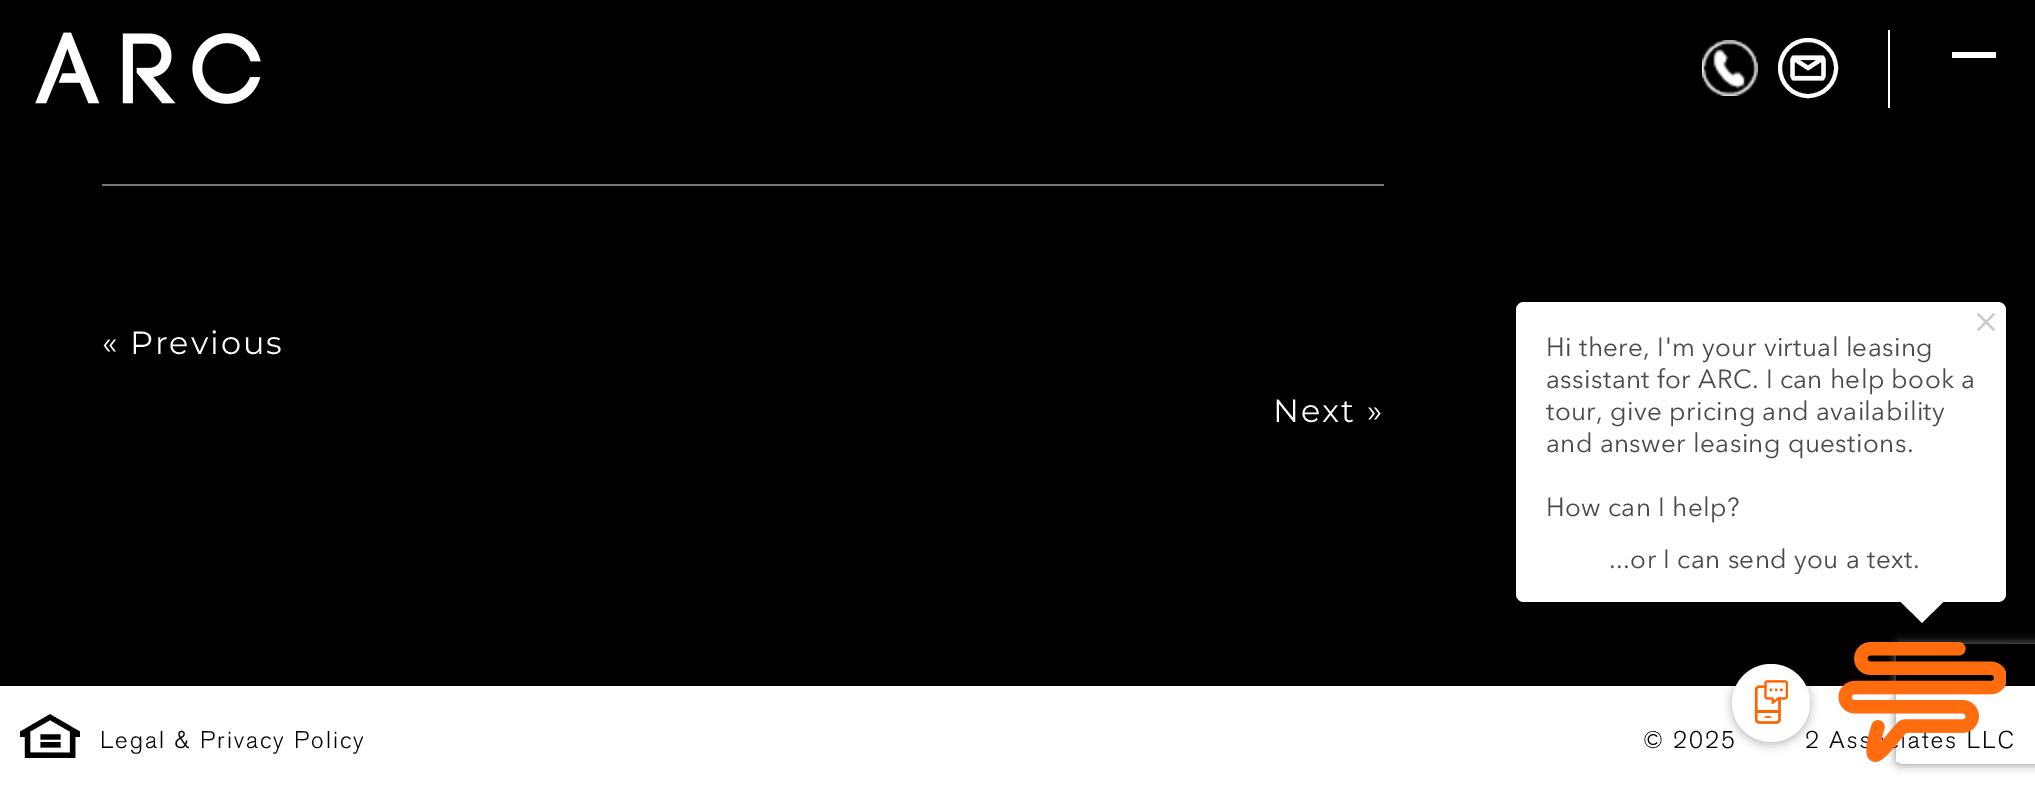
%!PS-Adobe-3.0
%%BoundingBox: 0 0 2035 791
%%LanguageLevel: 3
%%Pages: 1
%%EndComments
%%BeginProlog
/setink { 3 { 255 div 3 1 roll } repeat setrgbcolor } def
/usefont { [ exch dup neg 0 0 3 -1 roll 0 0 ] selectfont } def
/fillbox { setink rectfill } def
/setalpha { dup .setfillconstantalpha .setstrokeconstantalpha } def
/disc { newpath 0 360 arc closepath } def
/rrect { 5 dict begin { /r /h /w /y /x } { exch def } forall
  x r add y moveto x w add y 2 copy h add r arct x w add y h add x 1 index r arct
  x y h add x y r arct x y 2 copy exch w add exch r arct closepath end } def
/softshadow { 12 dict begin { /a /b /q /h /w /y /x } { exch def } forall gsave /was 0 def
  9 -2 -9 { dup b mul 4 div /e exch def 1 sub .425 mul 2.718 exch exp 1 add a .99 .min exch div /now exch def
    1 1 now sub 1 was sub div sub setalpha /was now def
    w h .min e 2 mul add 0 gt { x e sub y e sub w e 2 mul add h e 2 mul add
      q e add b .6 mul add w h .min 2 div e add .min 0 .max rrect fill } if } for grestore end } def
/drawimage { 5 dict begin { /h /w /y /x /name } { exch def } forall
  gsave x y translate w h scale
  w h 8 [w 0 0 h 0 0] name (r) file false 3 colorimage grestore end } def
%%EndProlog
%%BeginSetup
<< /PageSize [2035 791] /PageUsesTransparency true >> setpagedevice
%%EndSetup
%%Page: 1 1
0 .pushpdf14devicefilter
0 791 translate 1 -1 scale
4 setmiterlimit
0 0 2035 791 0 0 0 fillbox
(assets/img1.rgb) 35 32 226 72 drawimage
(assets/img2.rgb) 1702 40 56 56 drawimage
255 255 255 setink
4 setlinewidth
1808 68 28 disc stroke
(assets/img3.rgb) 1790 55 36 26 drawimage
1888 30 2 78 255 255 255 fillbox
1952 52 44 6 255 255 255 fillbox
102 184 1282 2 119 119 119 fillbox
/Montserrat-Regular 32 usefont
255 255 255 setink
102 354 moveto 2 0 (« Previous) ashow
1273 422 moveto 2 0 (Next ») ashow
0 686 2035 105 255 255 255 fillbox
(assets/img4.rgb) 20 714 60 44 drawimage
/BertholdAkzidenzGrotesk-Light 24 usefont
0 0 0 setink
100 748 moveto 2 0 (Legal & Privacy Policy) ashow
1643 748 moveto 2 0 (© 2025) ashow
1805 748 moveto 2 0 (2 As) ashow
1908 748 moveto 2 0 (ates LLC) ashow
255 255 255 setink
1516 302 490 300 8 rrect fill
(assets/img5.rgb) 1976 312 20 20 drawimage
/AvenirNext-Regular 26 usefont
74 74 74 setink
1546 356 moveto 0.4 0 (Hi there, I'm your virtual leasing) ashow
1546 388 moveto 0.4 0 (assistant for ARC. I can help book a) ashow
1546 420 moveto 0.4 0 (tour, give pricing and availability) ashow
1546 452 moveto 0.4 0 (and answer leasing questions.) ashow
1546 516 moveto 0.4 0 (How can I help?) ashow
gsave
1546 542 430 32 rectclip
1609 568 moveto 0.4 0 (...or I can send you a text.) ashow
grestore
gsave
1890 602 64 64 rectclip
255 255 255 setink
1877 578 moveto 1922 533 lineto 1967 578 lineto 1922 623 lineto closepath fill
grestore
gsave
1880 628 moveto 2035 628 lineto 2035 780 lineto 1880 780 lineto closepath 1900 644 moveto 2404 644 lineto 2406 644 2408 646 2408 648 curveto 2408 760 lineto 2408 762 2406 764 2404 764 curveto 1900 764 lineto 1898 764 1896 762 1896 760 curveto 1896 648 lineto 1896 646 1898 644 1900 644 curveto closepath eoclip newpath
128 128 128 setink
1896 644 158 120 4 5 1 softshadow
grestore
(assets/img6.rgb) 1838 642 168 120 drawimage
0 0 0 setink
1732 666 78 78 39 5 0.3 softshadow
255 255 255 setink
1771 703 39 disc fill
(assets/img7.rgb) 1754 680 34 44 drawimage
.poppdf14devicefilter showpage
%%EOF
